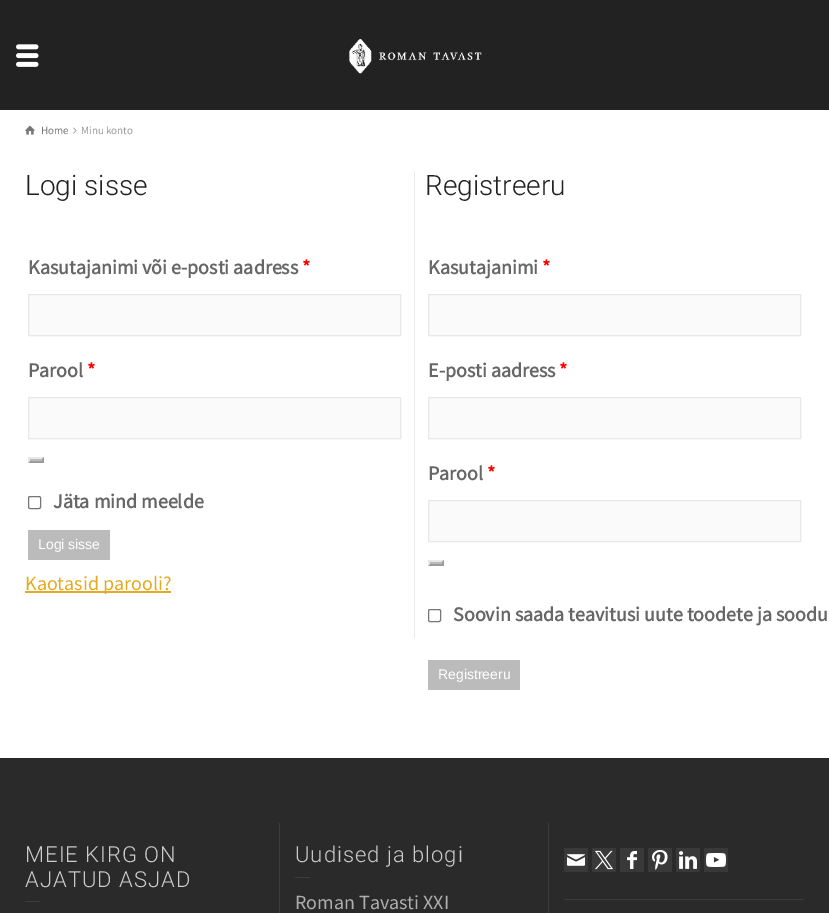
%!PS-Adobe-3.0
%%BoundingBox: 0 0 829 913
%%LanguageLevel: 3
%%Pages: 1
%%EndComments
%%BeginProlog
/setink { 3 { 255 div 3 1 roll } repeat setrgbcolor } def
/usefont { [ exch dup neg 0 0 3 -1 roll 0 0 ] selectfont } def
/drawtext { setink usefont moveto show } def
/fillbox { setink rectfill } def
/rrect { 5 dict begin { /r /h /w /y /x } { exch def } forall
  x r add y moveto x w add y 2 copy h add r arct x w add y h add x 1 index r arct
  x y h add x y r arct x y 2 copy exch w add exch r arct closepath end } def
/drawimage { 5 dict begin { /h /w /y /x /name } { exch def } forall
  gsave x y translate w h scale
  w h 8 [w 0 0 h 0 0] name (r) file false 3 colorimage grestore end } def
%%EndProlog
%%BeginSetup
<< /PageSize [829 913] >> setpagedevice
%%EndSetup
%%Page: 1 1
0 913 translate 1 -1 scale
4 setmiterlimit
0 0 829 913 255 255 255 fillbox
0 0 829 110 34 34 34 fillbox
(assets/img1.rgb) 16 44 23 23 drawimage
(assets/img2.rgb) 349 39 133 35 drawimage
(assets/img3.rgb) 25 125 10 10 drawimage
(Home) 41 134 /SourceSansPro-Regular 11 119 119 119 drawtext
(assets/img4.rgb) 73 127 4 7 drawimage
(Minu konto) 81 134 /SourceSansPro-Regular 11 153 153 153 drawtext
414 171 1 467 232 232 232 fillbox
(Logi sisse) 25 195 /Roboto-Light 28 34 34 34 drawtext
(Kasutajanimi või e-posti aadress) 28 274 /SourceSansPro-Bold 20 102 102 102 drawtext
(*) 302 274 /SourceSansPro-Bold 20 255 0 0 drawtext
250 250 250 setink
28.5 294.5 moveto 400.5 294.5 lineto 400.5 335.5 lineto 28.5 335.5 lineto closepath gsave fill grestore
232 232 232 setink
stroke
(Parool) 28 377 /SourceSansPro-Bold 20 102 102 102 drawtext
(*) 87 377 /SourceSansPro-Bold 20 255 0 0 drawtext
250 250 250 setink
28.5 397.5 moveto 400.5 397.5 lineto 400.5 438.5 lineto 28.5 438.5 lineto closepath gsave fill grestore
232 232 232 setink
stroke
28 457 16 6 187 187 187 fillbox
232 232 232 setink
28 457 moveto 44 457 lineto 42 459 lineto 30 459 lineto closepath fill
155 155 155 setink
44 457 moveto 44 463 lineto 42 461 lineto 42 459 lineto closepath fill
44 463 moveto 28 463 lineto 30 461 lineto 42 461 lineto closepath fill
232 232 232 setink
28 463 moveto 28 457 lineto 30 459 lineto 30 461 lineto closepath fill
118 118 118 setink
28.5 496.5 12 12 1.5 rrect stroke
(Jäta mind meelde) 53 508 /SourceSansPro-Bold 20 102 102 102 drawtext
28 530 82 30 187 187 187 fillbox
(Logi sisse) 38 549 /LiberationSans-Regular 14 255 255 255 drawtext
25 591 146 2 230 170 33 fillbox
(Kaotasid parooli?) 25 590 /SourceSansPro-Regular 20 230 170 33 drawtext
(Registreeru) 425 195 /Roboto-Light 28 34 34 34 drawtext
(Kasutajanimi) 428 274 /SourceSansPro-Bold 20 102 102 102 drawtext
(*) 542 274 /SourceSansPro-Bold 20 255 0 0 drawtext
250 250 250 setink
428.5 294.5 moveto 800.5 294.5 lineto 800.5 335.5 lineto 428.5 335.5 lineto closepath gsave fill grestore
232 232 232 setink
stroke
(E-posti aadress) 428 377 /SourceSansPro-Bold 20 102 102 102 drawtext
(*) 559 377 /SourceSansPro-Bold 20 255 0 0 drawtext
250 250 250 setink
428.5 397.5 moveto 800.5 397.5 lineto 800.5 438.5 lineto 428.5 438.5 lineto closepath gsave fill grestore
232 232 232 setink
stroke
(Parool) 428 480 /SourceSansPro-Bold 20 102 102 102 drawtext
(*) 487 480 /SourceSansPro-Bold 20 255 0 0 drawtext
250 250 250 setink
428.5 500.5 moveto 800.5 500.5 lineto 800.5 541.5 lineto 428.5 541.5 lineto closepath gsave fill grestore
232 232 232 setink
stroke
428 560 16 6 187 187 187 fillbox
232 232 232 setink
428 560 moveto 444 560 lineto 442 562 lineto 430 562 lineto closepath fill
155 155 155 setink
444 560 moveto 444 566 lineto 442 564 lineto 442 562 lineto closepath fill
444 566 moveto 428 566 lineto 430 564 lineto 442 564 lineto closepath fill
232 232 232 setink
428 566 moveto 428 560 lineto 430 562 lineto 430 564 lineto closepath fill
118 118 118 setink
428.5 609.5 12 12 1.5 rrect stroke
(Soovin saada teavitusi uute toodete ja soodu) 453 621 /SourceSansPro-Bold 20 102 102 102 drawtext
428 660 92 30 187 187 187 fillbox
(Registreeru) 438 679 /LiberationSans-Regular 14 255 255 255 drawtext
0 758 829 155 42 42 42 fillbox
/Roboto-Light 22 usefont
204 204 204 setink
25 862 moveto 1 0 (MEIE KIRG ON) ashow
25 887 moveto 1 0 (AJATUD ASJAD) ashow
25 901 15 1 60 60 60 fillbox
279 823 1 90 60 60 60 fillbox
204 204 204 setink
295 862 moveto 1 0 (Uudised ja blogi) ashow
295 877 15 1 60 60 60 fillbox
(Roman Tavasti XXI) 295 909 /SourceSansPro-Regular 20 174 174 174 drawtext
548 823 1 90 60 60 60 fillbox
564 848 24 24 57 57 57 fillbox
(assets/img5.rgb) 567 854 18 12 drawimage
592 848 24 24 57 57 57 fillbox
(assets/img6.rgb) 595 850 18 20 drawimage
620 848 24 24 57 57 57 fillbox
(assets/img7.rgb) 627 851 10 18 drawimage
648 848 24 24 57 57 57 fillbox
(assets/img8.rgb) 652 850 16 20 drawimage
676 848 24 24 57 57 57 fillbox
(assets/img9.rgb) 679 851 18 18 drawimage
704 848 24 24 57 57 57 fillbox
(assets/img10.rgb) 706 852 20 15 drawimage
564 899 240 1 60 60 60 fillbox
showpage
%%EOF
